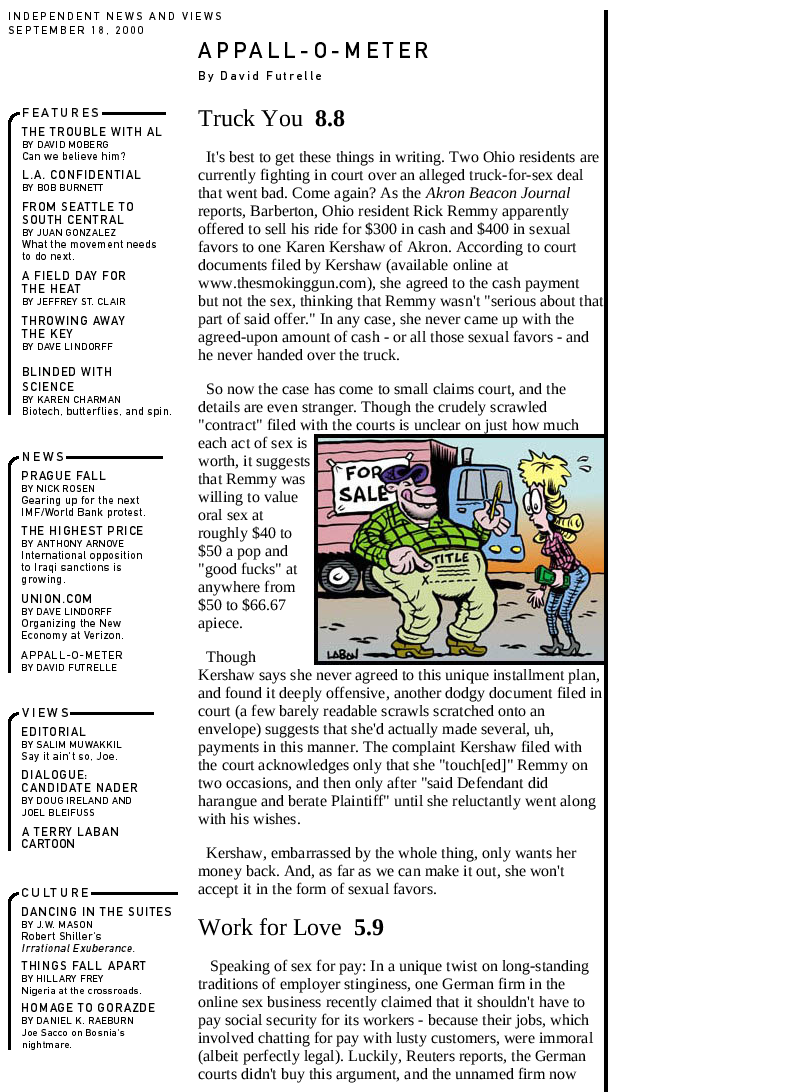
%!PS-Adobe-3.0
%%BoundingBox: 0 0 790 1092
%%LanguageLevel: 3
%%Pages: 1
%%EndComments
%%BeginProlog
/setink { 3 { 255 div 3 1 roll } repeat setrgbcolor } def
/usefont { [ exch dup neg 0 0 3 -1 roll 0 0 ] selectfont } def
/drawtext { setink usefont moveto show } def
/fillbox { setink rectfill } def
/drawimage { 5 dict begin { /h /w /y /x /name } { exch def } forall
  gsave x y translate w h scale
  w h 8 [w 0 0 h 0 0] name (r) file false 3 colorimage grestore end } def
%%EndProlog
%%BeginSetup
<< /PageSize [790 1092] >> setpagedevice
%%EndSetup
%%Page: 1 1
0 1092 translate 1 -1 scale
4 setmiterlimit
0 0 790 1092 255 255 255 fillbox
(assets/img1.rgb) 8 10 600 27 drawimage
(assets/img2.rgb) 8 108 163 309 drawimage
(assets/img3.rgb) 8 452 155 221 drawimage
(assets/img4.rgb) 8 708 146 143 drawimage
(assets/img5.rgb) 8 888 170 162 drawimage
(assets/img6.rgb) 198 42 230 40 drawimage
604 37 4 1055 0 0 0 fillbox
(Truck You) 198 126 /LiberationSerif-Regular 24 0 0 0 drawtext
(8.8) 315 126 /LiberationSerif-Bold 24 0 0 0 drawtext
(It's best to get these things in writing. Two Ohio residents are) 206 162 /LiberationSerif-Regular 16 0 0 0 drawtext
(currently fighting in court over an alleged truck-for-sex deal) 198 180 /LiberationSerif-Regular 16 0 0 0 drawtext
(that went bad. Come again? As the) 198 198 /LiberationSerif-Regular 16 0 0 0 drawtext
(Akron Beacon Journal) 426 198 /LiberationSerif-Italic 16 0 0 0 drawtext
(reports, Barberton, Ohio resident Rick Remmy apparently) 198 216 /LiberationSerif-Regular 16 0 0 0 drawtext
(offered to sell his ride for $300 in cash and $400 in sexual) 198 234 /LiberationSerif-Regular 16 0 0 0 drawtext
(favors to one Karen Kershaw of Akron. According to court) 198 252 /LiberationSerif-Regular 16 0 0 0 drawtext
(documents filed by Kershaw \(available online at) 198 270 /LiberationSerif-Regular 16 0 0 0 drawtext
(www.thesmokinggun.com\), she agreed to the cash payment) 198 288 /LiberationSerif-Regular 16 0 0 0 drawtext
(but not the sex, thinking that Remmy wasn't "serious about that) 198 306 /LiberationSerif-Regular 16 0 0 0 drawtext
(part of said offer." In any case, she never came up with the) 198 324 /LiberationSerif-Regular 16 0 0 0 drawtext
(agreed-upon amount of cash - or all those sexual favors - and) 198 342 /LiberationSerif-Regular 16 0 0 0 drawtext
(he never handed over the truck.) 198 360 /LiberationSerif-Regular 16 0 0 0 drawtext
(So now the case has come to small claims court, and the) 206 394 /LiberationSerif-Regular 16 0 0 0 drawtext
(details are even stranger. Though the crudely scrawled) 198 412 /LiberationSerif-Regular 16 0 0 0 drawtext
("contract" filed with the courts is unclear on just how much) 198 430 /LiberationSerif-Regular 16 0 0 0 drawtext
(each act of sex is) 198 448 /LiberationSerif-Regular 16 0 0 0 drawtext
(assets/img7.rgb) 314 434 290 231 drawimage
(worth, it suggests) 198 466 /LiberationSerif-Regular 16 0 0 0 drawtext
(that Remmy was) 198 484 /LiberationSerif-Regular 16 0 0 0 drawtext
(willing to value) 198 502 /LiberationSerif-Regular 16 0 0 0 drawtext
(oral sex at) 198 520 /LiberationSerif-Regular 16 0 0 0 drawtext
(roughly $40 to) 198 538 /LiberationSerif-Regular 16 0 0 0 drawtext
($50 a pop and) 198 556 /LiberationSerif-Regular 16 0 0 0 drawtext
("good fucks" at) 198 574 /LiberationSerif-Regular 16 0 0 0 drawtext
(anywhere from) 198 592 /LiberationSerif-Regular 16 0 0 0 drawtext
($50 to $66.67) 198 610 /LiberationSerif-Regular 16 0 0 0 drawtext
(apiece.) 198 628 /LiberationSerif-Regular 16 0 0 0 drawtext
(Though) 206 662 /LiberationSerif-Regular 16 0 0 0 drawtext
(Kershaw says she never agreed to this unique installment plan,) 198 680 /LiberationSerif-Regular 16 0 0 0 drawtext
(and found it deeply offensive, another dodgy document filed in) 198 698 /LiberationSerif-Regular 16 0 0 0 drawtext
(court \(a few barely readable scrawls scratched onto an) 198 716 /LiberationSerif-Regular 16 0 0 0 drawtext
(envelope\) suggests that she'd actually made several, uh,) 198 734 /LiberationSerif-Regular 16 0 0 0 drawtext
(payments in this manner. The complaint Kershaw filed with) 198 752 /LiberationSerif-Regular 16 0 0 0 drawtext
(the court acknowledges only that she "touch[ed]" Remmy on) 198 770 /LiberationSerif-Regular 16 0 0 0 drawtext
(two occasions, and then only after "said Defendant did) 198 788 /LiberationSerif-Regular 16 0 0 0 drawtext
(harangue and berate Plaintiff" until she reluctantly went along) 198 806 /LiberationSerif-Regular 16 0 0 0 drawtext
(with his wishes.) 198 824 /LiberationSerif-Regular 16 0 0 0 drawtext
(Kershaw, embarrassed by the whole thing, only wants her) 206 858 /LiberationSerif-Regular 16 0 0 0 drawtext
(money back. And, as far as we can make it out, she won't) 198 876 /LiberationSerif-Regular 16 0 0 0 drawtext
(accept it in the form of sexual favors.) 198 894 /LiberationSerif-Regular 16 0 0 0 drawtext
(Work for Love) 198 935 /LiberationSerif-Regular 24 0 0 0 drawtext
(5.9) 354 935 /LiberationSerif-Bold 24 0 0 0 drawtext
(Speaking of sex for pay: In a unique twist on long-standing) 210 971 /LiberationSerif-Regular 16 0 0 0 drawtext
(traditions of employer stinginess, one German firm in the) 198 989 /LiberationSerif-Regular 16 0 0 0 drawtext
(online sex business recently claimed that it shouldn't have to) 198 1007 /LiberationSerif-Regular 16 0 0 0 drawtext
(pay social security for its workers - because their jobs, which) 198 1025 /LiberationSerif-Regular 16 0 0 0 drawtext
(involved chatting for pay with lusty customers, were immoral) 198 1043 /LiberationSerif-Regular 16 0 0 0 drawtext
(\(albeit perfectly legal\). Luckily, Reuters reports, the German) 198 1061 /LiberationSerif-Regular 16 0 0 0 drawtext
(courts didn't buy this argument, and the unnamed firm now) 198 1079 /LiberationSerif-Regular 16 0 0 0 drawtext
showpage
%%EOF
